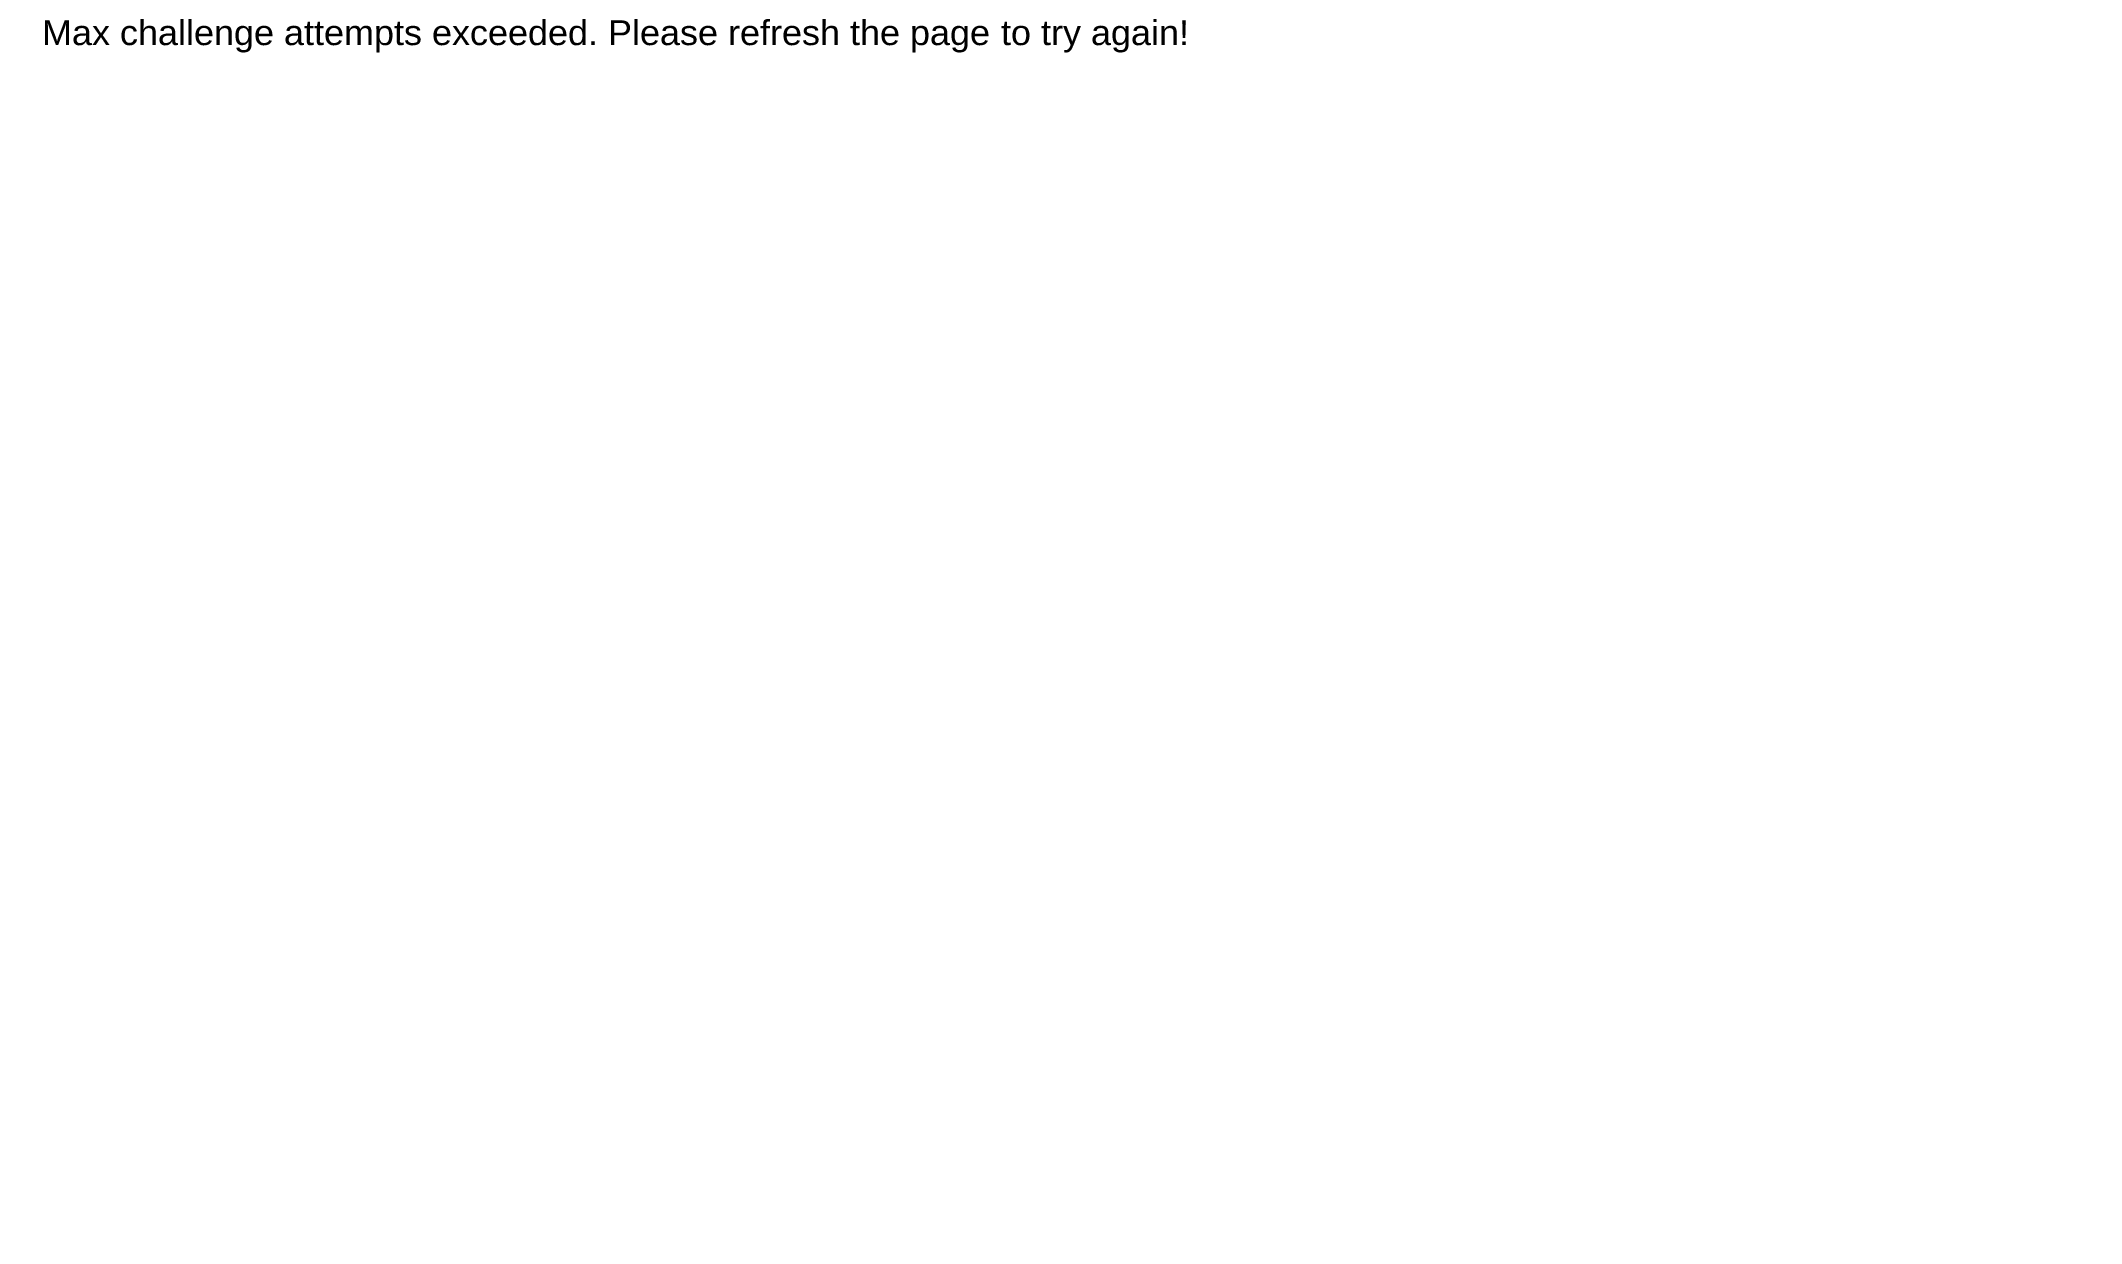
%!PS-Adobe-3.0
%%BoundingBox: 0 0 2122 1264
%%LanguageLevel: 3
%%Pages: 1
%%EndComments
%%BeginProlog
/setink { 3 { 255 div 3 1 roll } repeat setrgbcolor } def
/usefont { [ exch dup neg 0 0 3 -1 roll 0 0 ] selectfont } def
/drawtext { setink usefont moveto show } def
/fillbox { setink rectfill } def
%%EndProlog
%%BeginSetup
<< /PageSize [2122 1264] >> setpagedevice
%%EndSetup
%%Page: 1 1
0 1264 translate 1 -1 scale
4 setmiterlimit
0 0 2122 1264 255 255 255 fillbox
(Max challenge attempts exceeded. Please refresh the page to try again!) 42 45 /LiberationSans-Regular 36 0 0 0 drawtext
showpage
%%EOF
